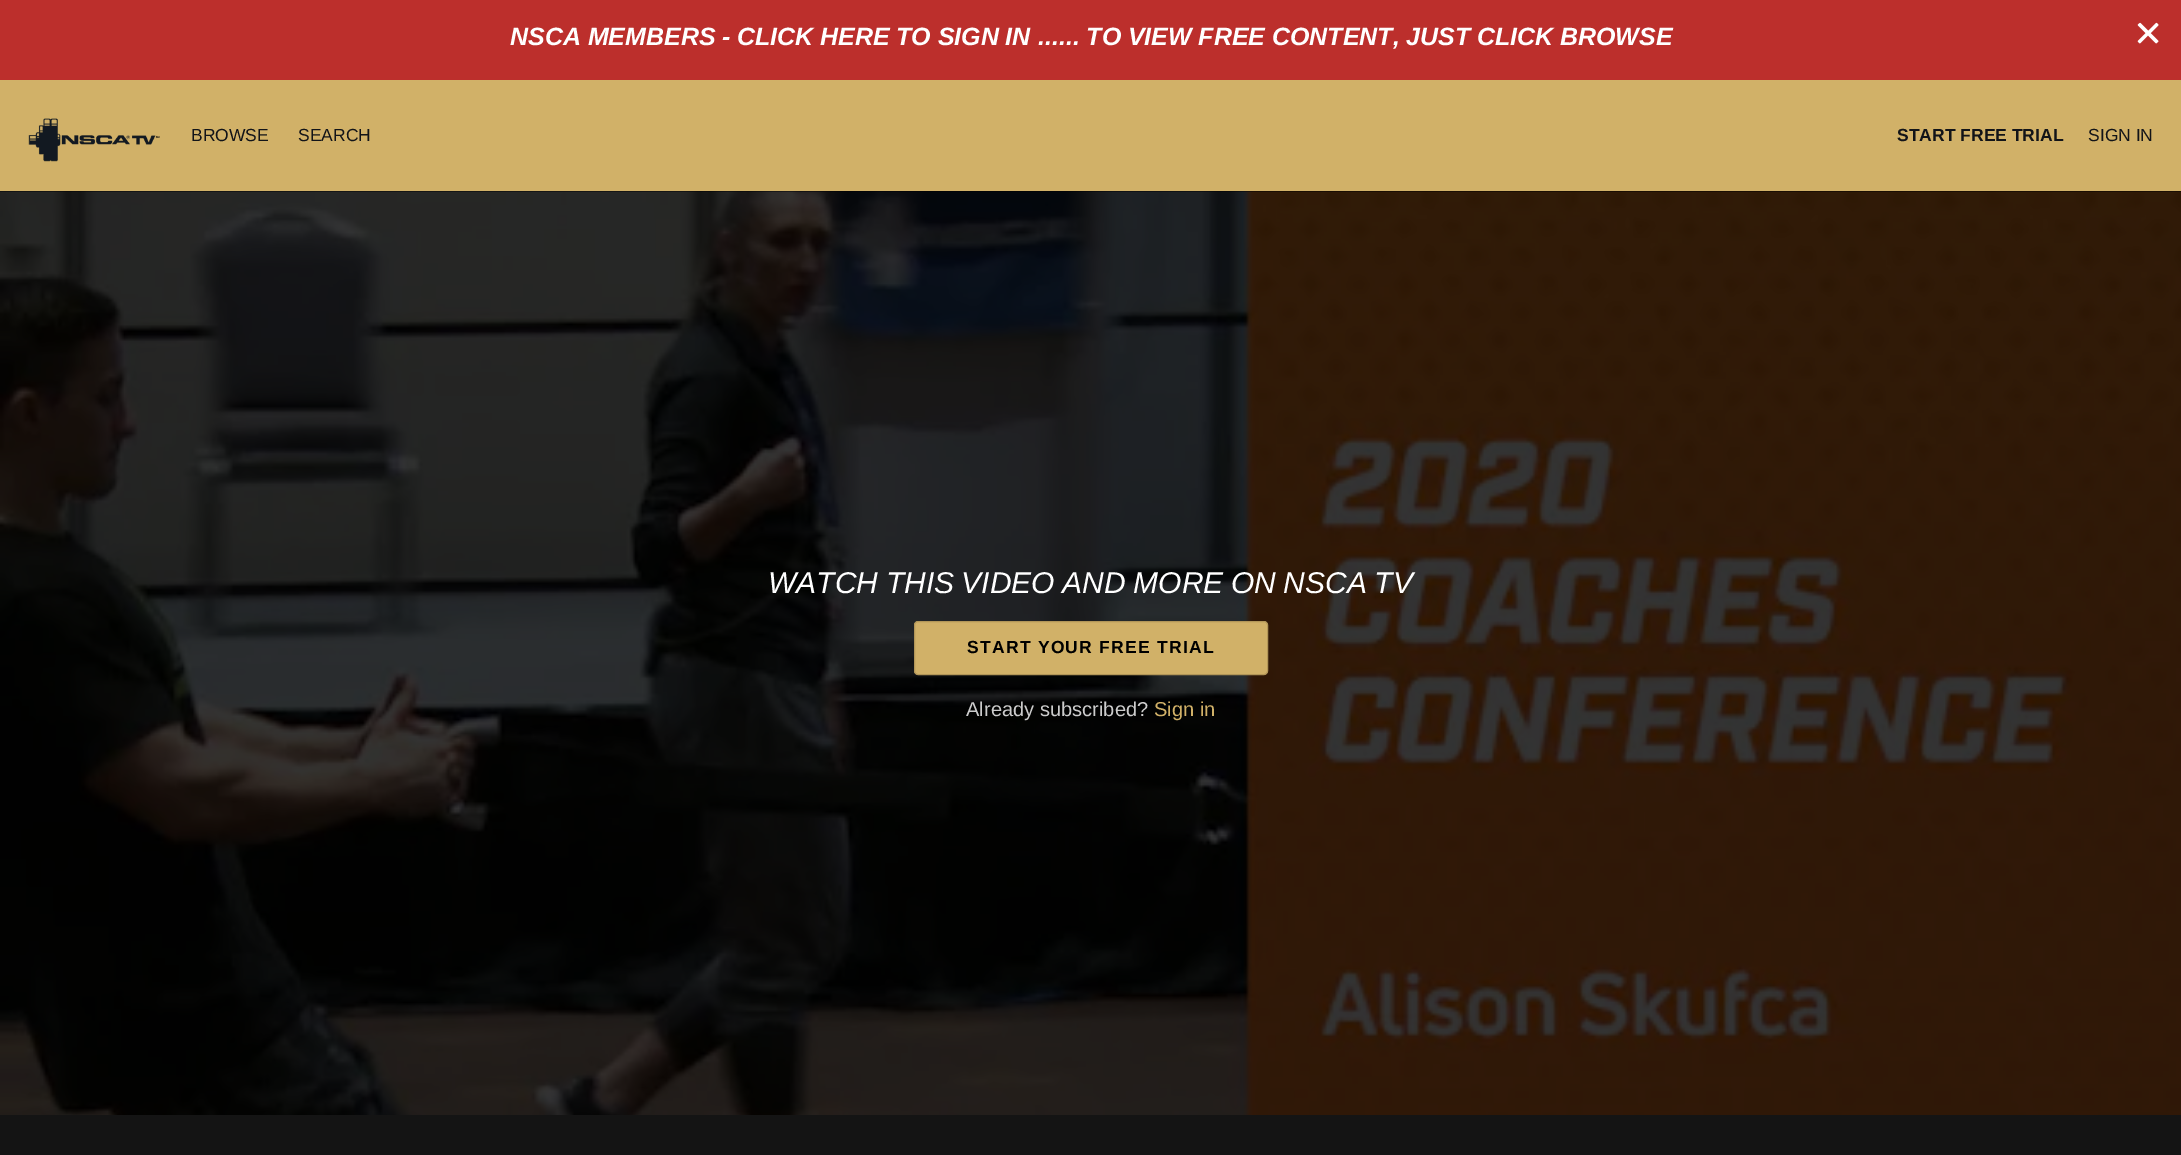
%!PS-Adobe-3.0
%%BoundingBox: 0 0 2181 1155
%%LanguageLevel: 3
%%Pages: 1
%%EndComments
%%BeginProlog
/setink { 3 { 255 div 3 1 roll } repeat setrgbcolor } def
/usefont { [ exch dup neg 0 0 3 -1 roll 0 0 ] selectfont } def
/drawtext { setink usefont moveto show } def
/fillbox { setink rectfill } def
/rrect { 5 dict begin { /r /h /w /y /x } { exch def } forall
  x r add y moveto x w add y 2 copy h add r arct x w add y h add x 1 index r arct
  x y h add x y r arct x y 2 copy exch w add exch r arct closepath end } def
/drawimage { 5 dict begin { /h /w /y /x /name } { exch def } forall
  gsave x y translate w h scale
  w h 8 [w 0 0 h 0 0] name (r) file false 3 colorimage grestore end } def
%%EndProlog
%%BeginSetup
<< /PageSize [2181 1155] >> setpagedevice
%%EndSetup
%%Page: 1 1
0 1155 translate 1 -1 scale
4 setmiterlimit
0 0 2181 1155 20 20 20 fillbox
0 0 2181 80 188 47 44 fillbox
/LiberationSans-BoldItalic 25 usefont
255 255 255 setink
510 45 moveto -0.25 0 32 (NSCA MEMBERS - CLICK HERE TO SIGN IN) widthshow
1038 45 moveto -0.25 0 32 (...... TO VIEW FREE CONTENT, JUST CLICK BROWSE) widthshow
(assets/img1.rgb) 2137 22 22 22 drawimage
0 80 2181 111 209 177 104 fillbox
(assets/img2.rgb) 28 118 132 44 drawimage
(BROWSE) 191 141 /LiberationSans-Regular 17.5 18 20 24 drawtext
(SEARCH) 298 141 /LiberationSans-Regular 17.5 18 20 24 drawtext
(START FREE TRIAL) 1897 141 /LiberationSans-Bold 17.5 18 20 24 drawtext
(SIGN IN) 2088 141 /LiberationSans-Regular 17.5 18 20 24 drawtext
0 191 2181 1 0 0 0 fillbox
(assets/img3.rgb) 0 191 2181 924 drawimage
/LiberationSans-Italic 30 usefont
255 255 255 setink
768 593 moveto -0.75 0 32 (WATCH THIS VIDEO AND MORE ON NSCA TV) widthshow
209 177 104 setink
914.5 621.5 353 53 3.5 rrect gsave fill grestore
178 150 88 setink
stroke
/LiberationSans-Bold 17.5 usefont
0 0 0 setink
967 653 moveto 1.25 0 (START YOUR FREE TRIAL) ashow
(Already subscribed?) 966 716 /LiberationSans-Regular 20.1 204 204 204 drawtext
(Sign in) 1154 716 /LiberationSans-Regular 20.1 209 177 104 drawtext
showpage
%%EOF
